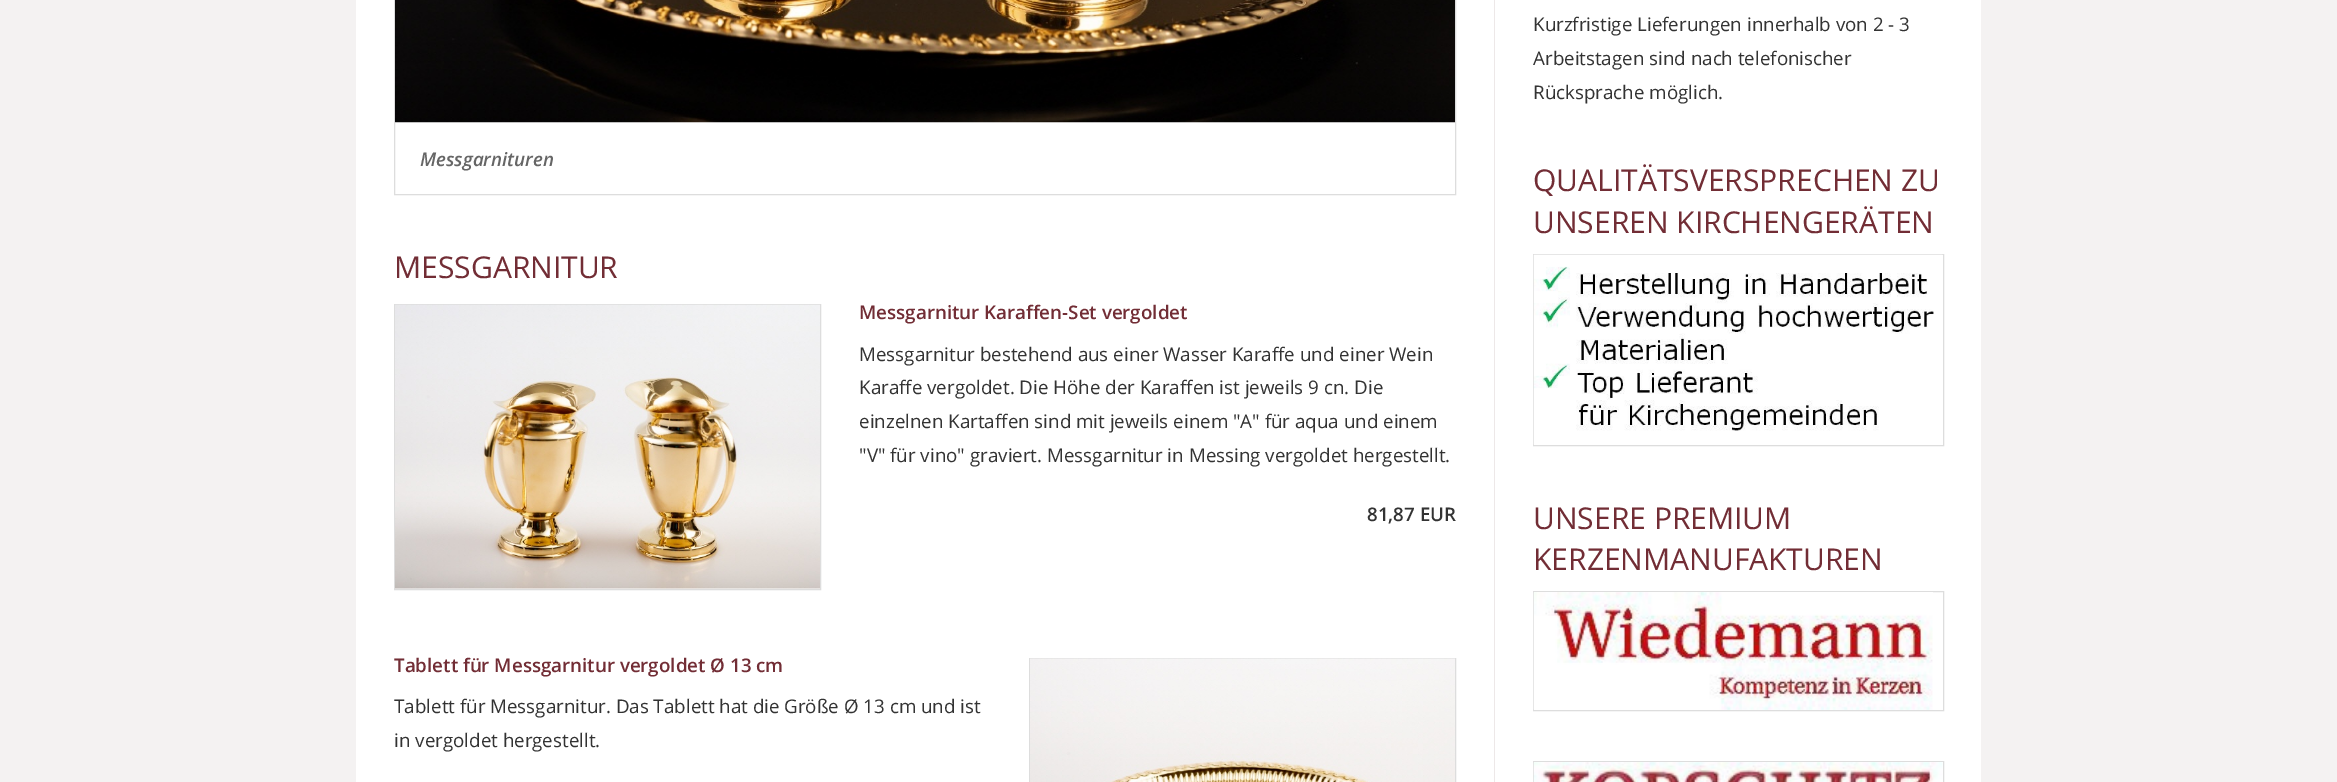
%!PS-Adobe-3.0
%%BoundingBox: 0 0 2337 782
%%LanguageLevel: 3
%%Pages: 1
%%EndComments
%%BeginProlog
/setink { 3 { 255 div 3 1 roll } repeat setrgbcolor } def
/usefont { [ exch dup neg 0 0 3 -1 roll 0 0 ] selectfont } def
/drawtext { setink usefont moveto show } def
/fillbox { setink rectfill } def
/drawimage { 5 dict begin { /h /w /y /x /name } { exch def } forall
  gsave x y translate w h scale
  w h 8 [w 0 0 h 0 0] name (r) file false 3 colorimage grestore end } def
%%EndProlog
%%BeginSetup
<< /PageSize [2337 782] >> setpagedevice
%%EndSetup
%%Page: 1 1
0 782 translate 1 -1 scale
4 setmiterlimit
0 0 2337 782 244 242 242 fillbox
356 0 1138 782 255 255 255 fillbox
221 221 221 setink
394.5 -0.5 1061 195 rectstroke
(assets/img1.rgb) 395 0 1060 123 drawimage
(Messgarnituren) 420 166 /OpenSans-SemiBoldItalic 18.75 102 102 102 drawtext
(MESSGARNITUR) 394 278 /OpenSans-Regular 30 114 45 53 drawtext
221 221 221 setink
394.5 304.5 426 285 rectstroke
(assets/img2.rgb) 395 304 425 285 drawimage
(Messgarnitur Karaffen-Set vergoldet) 859 319 /OpenSans-SemiBold 18.75 114 45 53 drawtext
(Messgarnitur bestehend aus einer Wasser Karaffe und einer Wein) 859 361 /OpenSans-Regular 18.75 51 51 51 drawtext
(Karaffe vergoldet. Die Höhe der Karaffen ist jeweils 9 cn. Die) 859 394 /OpenSans-Regular 18.75 51 51 51 drawtext
(einzelnen Kartaffen sind mit jeweils einem "A" für aqua und einem) 859 428 /OpenSans-Regular 18.75 51 51 51 drawtext
("V" für vino" graviert. Messgarnitur in Messing vergoldet hergestellt.) 859 462 /OpenSans-Regular 18.75 51 51 51 drawtext
(81,87 EUR) 1367 521 /OpenSans-SemiBold 18.75 51 51 51 drawtext
(Tablett für Messgarnitur vergoldet Ø 13 cm) 394 672 /OpenSans-SemiBold 18.75 114 45 53 drawtext
221 221 221 setink
1029.5 658.5 426 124 rectstroke
(assets/img3.rgb) 1030 658 425 124 drawimage
(Tablett für Messgarnitur. Das Tablett hat die Größe Ø 13 cm und ist) 394 713 /OpenSans-Regular 18.75 51 51 51 drawtext
(in vergoldet hergestellt.) 394 747 /OpenSans-Regular 18.75 51 51 51 drawtext
1495 0 486 782 255 255 255 fillbox
1494 0 1 782 237 232 232 fillbox
(Kurzfristige Lieferungen innerhalb von 2 - 3) 1533 31 /OpenSans-Regular 18.75 51 51 51 drawtext
(Arbeitstagen sind nach telefonischer) 1533 65 /OpenSans-Regular 18.75 51 51 51 drawtext
(Rücksprache möglich.) 1533 99 /OpenSans-Regular 18.75 51 51 51 drawtext
(QUALITÄTSVERSPRECHEN ZU) 1533 191 /OpenSans-Regular 30 114 45 53 drawtext
(UNSEREN KIRCHENGERÄTEN) 1533 233 /OpenSans-Regular 30 114 45 53 drawtext
221 221 221 setink
1533.5 254.5 410 191 rectstroke
(assets/img4.rgb) 1533 254 410 191 drawimage
(UNSERE PREMIUM) 1533 529 /OpenSans-Regular 30 114 45 53 drawtext
(KERZENMANUFAKTUREN) 1533 570 /OpenSans-Regular 30 114 45 53 drawtext
221 221 221 setink
1533.5 591.5 410 119 rectstroke
(assets/img5.rgb) 1533 592 400 118 drawimage
1533.5 761.5 410 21 rectstroke
(assets/img6.rgb) 1533 762 410 20 drawimage
showpage
%%EOF
